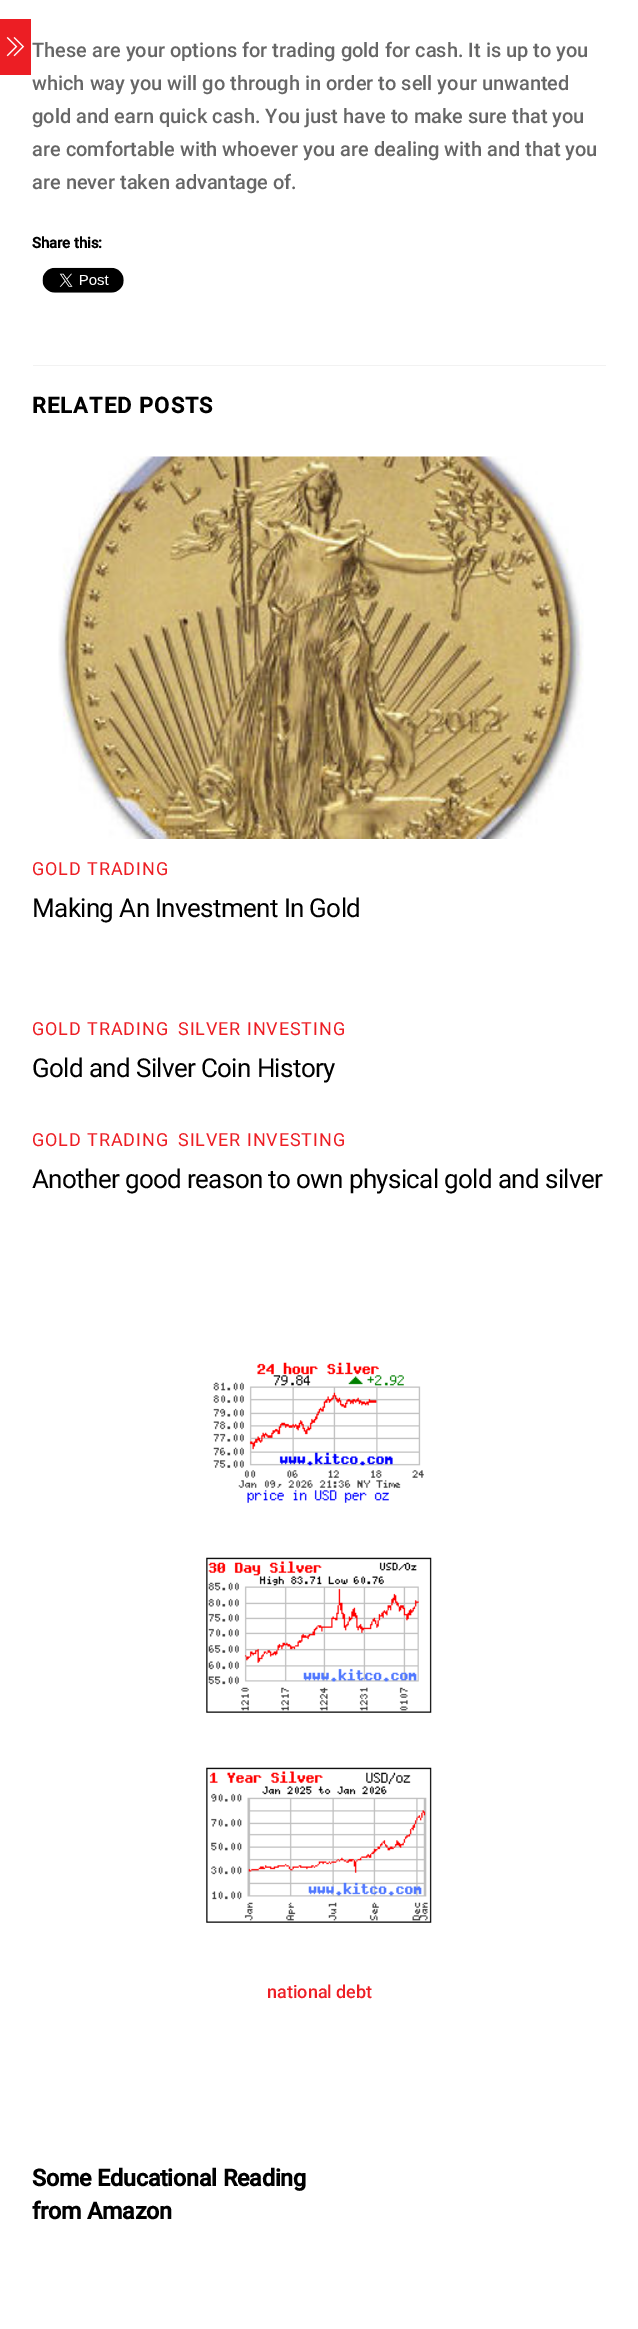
%!PS-Adobe-3.0
%%BoundingBox: 0 0 638 2329
%%LanguageLevel: 3
%%Pages: 1
%%EndComments
%%BeginProlog
/setink { 3 { 255 div 3 1 roll } repeat setrgbcolor } def
/usefont { [ exch dup neg 0 0 3 -1 roll 0 0 ] selectfont } def
/drawtext { setink usefont moveto show } def
/fillbox { setink rectfill } def
/drawimage { 5 dict begin { /h /w /y /x /name } { exch def } forall
  gsave x y translate w h scale
  w h 8 [w 0 0 h 0 0] name (r) file false 3 colorimage grestore end } def
%%EndProlog
%%BeginSetup
<< /PageSize [638 2329] >> setpagedevice
%%EndSetup
%%Page: 1 1
0 2329 translate 1 -1 scale
4 setmiterlimit
0 0 638 2329 255 255 255 fillbox
0 19 31 56 236 30 36 fillbox
(assets/img1.rgb) 6 37 19 20 drawimage
(These are your options for trading gold for cash. It is up to you) 32 57 /Roboto-Medium 20 102 102 102 drawtext
(which way you will go through in order to sell your unwanted) 32 90 /Roboto-Medium 20 102 102 102 drawtext
(gold and earn quick cash. You just have to make sure that you) 32 123 /Roboto-Medium 20 102 102 102 drawtext
(are comfortable with whoever you are dealing with and that you) 32 156 /Roboto-Medium 20 102 102 102 drawtext
(are never taken advantage of.) 32 189 /Roboto-Medium 20 102 102 102 drawtext
/Roboto-Bold 15 usefont
0 0 0 setink
32 248 moveto -0.1 0 (Share this:) ashow
(assets/img2.rgb) 42 267 82 26 drawimage
33 365 573 1 242 242 242 fillbox
/Roboto-Bold 22 usefont
0 0 0 setink
32 413 moveto 1.1 0 (RELATED POSTS) ashow
(assets/img3.rgb) 58 456 526 383 drawimage
/Roboto-Regular 18 usefont
237 30 36 setink
32 875 moveto 0.9 0 (GOLD TRADING) ashow
/Roboto-Regular 26 usefont
0 0 0 setink
32 917 moveto -0.65 0 (Making An Investment In Gold) ashow
/Roboto-Regular 18 usefont
237 30 36 setink
32 1035 moveto 0.9 0 (GOLD TRADING) ashow
178 1035 moveto 0.9 0 (SILVER INVESTING) ashow
/Roboto-Regular 26 usefont
0 0 0 setink
32 1077 moveto -0.65 0 (Gold and Silver Coin History) ashow
/Roboto-Regular 18 usefont
237 30 36 setink
32 1146 moveto 0.9 0 (GOLD TRADING) ashow
178 1146 moveto 0.9 0 (SILVER INVESTING) ashow
/Roboto-Regular 26 usefont
0 0 0 setink
32 1188 moveto -0.65 0 (Another good reason to own physical gold and silver) ashow
(assets/img4.rgb) 213 1362 211 141 drawimage
(assets/img5.rgb) 206 1557 226 156 drawimage
(assets/img6.rgb) 206 1767 226 156 drawimage
(national debt) 267 1998 /Roboto-Medium 18 237 30 36 drawtext
/Roboto-Bold 23.4 usefont
0 0 0 setink
32 2186 moveto -0.25 0 (Some Educational Reading) ashow
32 2219 moveto -0.25 0 (from Amazon) ashow
showpage
%%EOF
